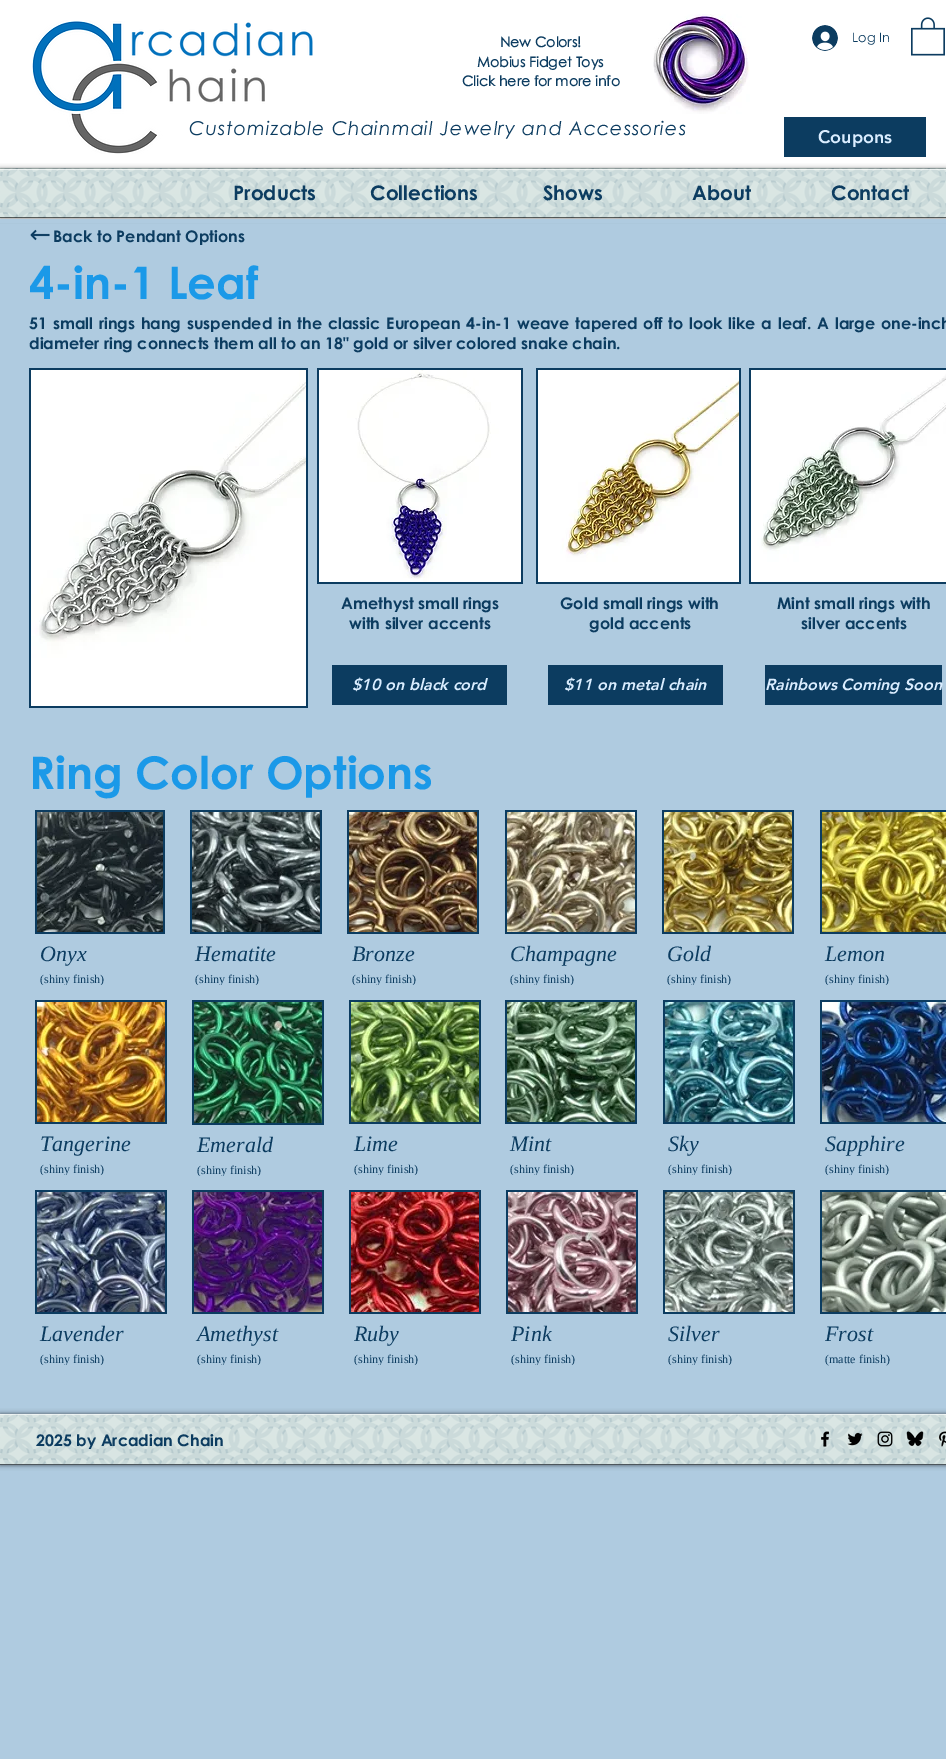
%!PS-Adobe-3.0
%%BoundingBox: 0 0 946 1759
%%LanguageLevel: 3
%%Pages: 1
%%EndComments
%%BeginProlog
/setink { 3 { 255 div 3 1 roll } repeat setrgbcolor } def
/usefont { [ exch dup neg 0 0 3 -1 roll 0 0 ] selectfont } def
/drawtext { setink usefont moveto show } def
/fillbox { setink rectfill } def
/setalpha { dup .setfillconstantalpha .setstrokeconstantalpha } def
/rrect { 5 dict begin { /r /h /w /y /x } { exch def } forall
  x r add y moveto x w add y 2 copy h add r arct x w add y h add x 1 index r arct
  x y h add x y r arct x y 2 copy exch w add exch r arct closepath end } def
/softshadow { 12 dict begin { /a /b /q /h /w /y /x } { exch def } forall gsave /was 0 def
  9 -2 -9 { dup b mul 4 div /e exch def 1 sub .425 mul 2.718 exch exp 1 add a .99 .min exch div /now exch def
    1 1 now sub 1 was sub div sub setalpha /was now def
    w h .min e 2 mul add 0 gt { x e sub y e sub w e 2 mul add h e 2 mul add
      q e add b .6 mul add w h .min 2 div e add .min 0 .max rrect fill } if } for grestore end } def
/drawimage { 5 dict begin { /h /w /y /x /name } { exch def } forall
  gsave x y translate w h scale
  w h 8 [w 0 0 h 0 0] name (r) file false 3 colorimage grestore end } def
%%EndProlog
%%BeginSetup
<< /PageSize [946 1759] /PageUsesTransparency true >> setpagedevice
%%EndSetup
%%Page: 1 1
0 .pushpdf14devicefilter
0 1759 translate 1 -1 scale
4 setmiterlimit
0 0 946 1759 175 203 224 fillbox
0 0 946 219 255 255 255 fillbox
/CenturyGothic-Italic 19 usefont
12 60 96 setink
189 135 moveto 0.95 0 (Customizable Chainmail Jewelry and Accessories) ashow
(assets/img1.rgb) 32 20 281 134 drawimage
(New Colors!) 500 47 /CenturyGothic-Bold 14 12 60 96 drawtext
(Mobius Fidget Toys) 477 67 /CenturyGothic-Bold 14 12 60 96 drawtext
(Click here for more info) 462 86 /CenturyGothic-Bold 14 12 60 96 drawtext
(assets/img2.rgb) 653 14 97 100 drawimage
(assets/img3.rgb) 812 25 26 26 drawimage
(Log In) 852 42 /CenturyGothic-Regular 13 12 60 96 drawtext
(assets/img4.rgb) 911 17 34 39 drawimage
784 117 142 40 12 60 96 fillbox
(Coupons) 818 143 /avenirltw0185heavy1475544-Black 18 218 237 255 drawtext
(assets/img5.rgb) 0 168 946 50 drawimage
gsave
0 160 moveto 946 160 lineto 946 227 lineto 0 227 lineto closepath 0 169 moveto 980 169 lineto 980 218 lineto 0 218 lineto closepath eoclip newpath
0 0 0 setink
0 169 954 49 0 2.5 0.6 softshadow
grestore
(assets/img6.rgb) 0 169 946 49 drawimage
0.6 setalpha
0 217 946 1 0 0 0 fillbox
0 169 946 1 255 255 255 fillbox
1 setalpha
(Products) 233 200 /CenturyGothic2-Bold 20 12 60 96 drawtext
(Collections) 370 200 /CenturyGothic2-Bold 20 12 60 96 drawtext
(Shows) 543 200 /CenturyGothic2-Bold 20 12 60 96 drawtext
(About) 692 200 /CenturyGothic2-Bold 20 12 60 96 drawtext
(Contact) 831 200 /CenturyGothic2-Bold 20 12 60 96 drawtext
0 219 946 4 175 203 224 fillbox
(assets/img7.rgb) 30 229 20 12 drawimage
(Back to Pendant Options) 53 242 /CenturyGothic2-Bold 16 12 60 96 drawtext
(4-in-1 Leaf) 29 299 /CenturyGothic2-Bold 45 27 153 232 drawtext
/CenturyGothic2-Bold 16 usefont
12 60 96 setink
29 329 moveto 1.3 0 32 (51 small rings hang suspended in the classic European 4-in-1 weave tapered off to look like a leaf. A large one-inch) widthshow
(diameter ring connects them all to an 18" gold or silver colored snake chain.) 29 349 /CenturyGothic2-Bold 16 12 60 96 drawtext
29 368 279 340 12 60 96 fillbox
(assets/img8.rgb) 31 370 275 336 drawimage
317 368 206 216 12 60 96 fillbox
(assets/img9.rgb) 319 370 202 212 drawimage
536 368 205 216 12 60 96 fillbox
(assets/img10.rgb) 538 370 201 212 drawimage
749 368 197 216 12 60 96 fillbox
(assets/img11.rgb) 751 370 195 212 drawimage
(Amethyst small rings) 341 609 /CenturyGothic2-Bold 16 12 60 96 drawtext
(with silver accents) 349 629 /CenturyGothic2-Bold 16 12 60 96 drawtext
(Gold small rings with) 560 609 /CenturyGothic2-Bold 16 12 60 96 drawtext
(gold accents) 589 629 /CenturyGothic2-Bold 16 12 60 96 drawtext
(Mint small rings with) 777 609 /CenturyGothic2-Bold 16 12 60 96 drawtext
(silver accents) 801 629 /CenturyGothic2-Bold 16 12 60 96 drawtext
332 665 175 40 12 60 96 fillbox
($10 on black cord) 352 690 /avenirltw0185heavy1475544-BlackItalic 16 218 237 255 drawtext
548 665 175 40 12 60 96 fillbox
($11 on metal chain) 564 690 /avenirltw0185heavy1475544-BlackItalic 16 218 237 255 drawtext
765 665 177 40 12 60 96 fillbox
(Rainbows Coming Soon) 765 690 /avenirltw0185heavy1475544-BlackItalic 16 218 237 255 drawtext
(Ring Color Options) 29 789 /CenturyGothic2-Bold 45 27 153 232 drawtext
35 810 130 124 12 60 96 fillbox
(assets/img12.rgb) 37 812 126 120 drawimage
(Onyx) 40 961 /LiberationSerif-Italic 22 12 60 96 drawtext
gsave
40 971 120 14 rectclip
(\(shiny finish\)) 40 983 /LiberationSerif-Regular 12 12 60 96 drawtext
grestore
190 810 132 124 12 60 96 fillbox
(assets/img13.rgb) 192 812 128 120 drawimage
(Hematite) 195 961 /LiberationSerif-Italic 22 12 60 96 drawtext
gsave
195 971 122 14 rectclip
(\(shiny finish\)) 195 983 /LiberationSerif-Regular 12 12 60 96 drawtext
grestore
347 810 132 124 12 60 96 fillbox
(assets/img14.rgb) 349 812 128 120 drawimage
(Bronze) 352 961 /LiberationSerif-Italic 22 12 60 96 drawtext
gsave
352 971 122 14 rectclip
(\(shiny finish\)) 352 983 /LiberationSerif-Regular 12 12 60 96 drawtext
grestore
505 810 132 124 12 60 96 fillbox
(assets/img15.rgb) 507 812 128 120 drawimage
(Champagne) 510 961 /LiberationSerif-Italic 22 12 60 96 drawtext
gsave
510 971 122 14 rectclip
(\(shiny finish\)) 510 983 /LiberationSerif-Regular 12 12 60 96 drawtext
grestore
662 810 132 124 12 60 96 fillbox
(assets/img16.rgb) 664 812 128 120 drawimage
(Gold) 667 961 /LiberationSerif-Italic 22 12 60 96 drawtext
gsave
667 971 122 14 rectclip
(\(shiny finish\)) 667 983 /LiberationSerif-Regular 12 12 60 96 drawtext
grestore
820 810 126 124 12 60 96 fillbox
(assets/img17.rgb) 822 812 124 120 drawimage
(Lemon) 825 961 /LiberationSerif-Italic 22 12 60 96 drawtext
gsave
825 971 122 14 rectclip
(\(shiny finish\)) 825 983 /LiberationSerif-Regular 12 12 60 96 drawtext
grestore
35 1000 132 124 12 60 96 fillbox
(assets/img18.rgb) 37 1002 128 120 drawimage
(Tangerine) 40 1151 /LiberationSerif-Italic 22 12 60 96 drawtext
gsave
40 1161 122 14 rectclip
(\(shiny finish\)) 40 1173 /LiberationSerif-Regular 12 12 60 96 drawtext
grestore
192 1000 132 125 12 60 96 fillbox
(assets/img19.rgb) 194 1002 128 121 drawimage
(Emerald) 197 1152 /LiberationSerif-Italic 22 12 60 96 drawtext
gsave
197 1162 122 14 rectclip
(\(shiny finish\)) 197 1174 /LiberationSerif-Regular 12 12 60 96 drawtext
grestore
349 1000 132 124 12 60 96 fillbox
(assets/img20.rgb) 351 1002 128 120 drawimage
(Lime) 354 1151 /LiberationSerif-Italic 22 12 60 96 drawtext
gsave
354 1161 122 14 rectclip
(\(shiny finish\)) 354 1173 /LiberationSerif-Regular 12 12 60 96 drawtext
grestore
505 1000 132 124 12 60 96 fillbox
(assets/img21.rgb) 507 1002 128 120 drawimage
(Mint) 510 1151 /LiberationSerif-Italic 22 12 60 96 drawtext
gsave
510 1161 122 14 rectclip
(\(shiny finish\)) 510 1173 /LiberationSerif-Regular 12 12 60 96 drawtext
grestore
663 1000 132 124 12 60 96 fillbox
(assets/img22.rgb) 665 1002 128 120 drawimage
(Sky) 668 1151 /LiberationSerif-Italic 22 12 60 96 drawtext
gsave
668 1161 122 14 rectclip
(\(shiny finish\)) 668 1173 /LiberationSerif-Regular 12 12 60 96 drawtext
grestore
820 1000 126 124 12 60 96 fillbox
(assets/img23.rgb) 822 1002 124 120 drawimage
(Sapphire) 825 1151 /LiberationSerif-Italic 22 12 60 96 drawtext
gsave
825 1161 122 14 rectclip
(\(shiny finish\)) 825 1173 /LiberationSerif-Regular 12 12 60 96 drawtext
grestore
35 1190 132 124 12 60 96 fillbox
(assets/img24.rgb) 37 1192 128 120 drawimage
(Lavender) 40 1341 /LiberationSerif-Italic 22 12 60 96 drawtext
gsave
40 1351 122 14 rectclip
(\(shiny finish\)) 40 1363 /LiberationSerif-Regular 12 12 60 96 drawtext
grestore
192 1190 132 124 12 60 96 fillbox
(assets/img25.rgb) 194 1192 128 120 drawimage
(Amethyst) 197 1341 /LiberationSerif-Italic 22 12 60 96 drawtext
gsave
197 1351 122 14 rectclip
(\(shiny finish\)) 197 1363 /LiberationSerif-Regular 12 12 60 96 drawtext
grestore
349 1190 132 124 12 60 96 fillbox
(assets/img26.rgb) 351 1192 128 120 drawimage
(Ruby) 354 1341 /LiberationSerif-Italic 22 12 60 96 drawtext
gsave
354 1351 122 14 rectclip
(\(shiny finish\)) 354 1363 /LiberationSerif-Regular 12 12 60 96 drawtext
grestore
506 1190 132 124 12 60 96 fillbox
(assets/img27.rgb) 508 1192 128 120 drawimage
(Pink) 511 1341 /LiberationSerif-Italic 22 12 60 96 drawtext
gsave
511 1351 122 14 rectclip
(\(shiny finish\)) 511 1363 /LiberationSerif-Regular 12 12 60 96 drawtext
grestore
663 1190 132 124 12 60 96 fillbox
(assets/img28.rgb) 665 1192 128 120 drawimage
(Silver) 668 1341 /LiberationSerif-Italic 22 12 60 96 drawtext
gsave
668 1351 122 14 rectclip
(\(shiny finish\)) 668 1363 /LiberationSerif-Regular 12 12 60 96 drawtext
grestore
820 1190 126 124 12 60 96 fillbox
(assets/img29.rgb) 822 1192 124 120 drawimage
(Frost) 825 1341 /LiberationSerif-Italic 22 12 60 96 drawtext
(\(matte finish\)) 825 1363 /LiberationSerif-Regular 12 12 60 96 drawtext
(assets/img5.rgb) 0 1414 946 50 drawimage
gsave
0 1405 moveto 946 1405 lineto 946 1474 lineto 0 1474 lineto closepath 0 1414 moveto 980 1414 lineto 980 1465 lineto 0 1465 lineto closepath eoclip newpath
0 0 0 setink
0 1414 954 51 0 2.5 0.6 softshadow
grestore
(assets/img30.rgb) 0 1414 946 50 drawimage
0 1464 946 1 77 86 92 fillbox
0.6 setalpha
0 1414 946 1 255 255 255 fillbox
1 setalpha
(2025 by Arcadian Chain) 36 1446 /CenturyGothic2-Bold 16 12 60 96 drawtext
(assets/img31.rgb) 821 1431 9 16 drawimage
(assets/img32.rgb) 847 1432 16 14 drawimage
(assets/img33.rgb) 877 1431 16 16 drawimage
(assets/img34.rgb) 906 1431 18 15 drawimage
(assets/img35.rgb) 938 1431 8 16 drawimage
.poppdf14devicefilter showpage
%%EOF
